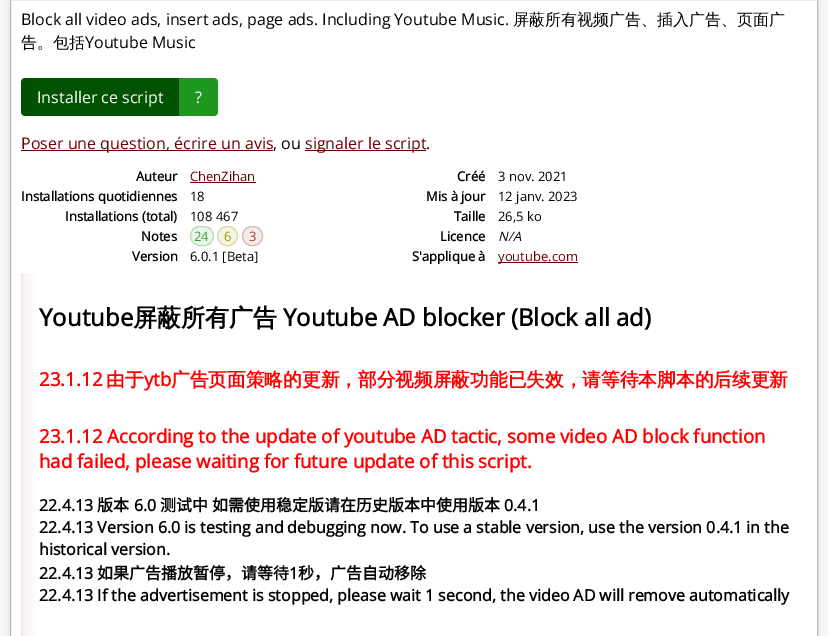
%!PS-Adobe-3.0
%%BoundingBox: 0 0 828 636
%%LanguageLevel: 3
%%Pages: 1
%%EndComments
%%BeginProlog
/setink { 3 { 255 div 3 1 roll } repeat setrgbcolor } def
/usefont { [ exch dup neg 0 0 3 -1 roll 0 0 ] selectfont } def
/drawtext { setink usefont moveto show } def
/fillbox { setink rectfill } def
/setalpha { dup .setfillconstantalpha .setstrokeconstantalpha } def
/rrect { 5 dict begin { /r /h /w /y /x } { exch def } forall
  x r add y moveto x w add y 2 copy h add r arct x w add y h add x 1 index r arct
  x y h add x y r arct x y 2 copy exch w add exch r arct closepath end } def
/softshadow { 12 dict begin { /a /b /q /h /w /y /x } { exch def } forall gsave /was 0 def
  9 -2 -9 { dup b mul 4 div /e exch def 1 sub .425 mul 2.718 exch exp 1 add a .99 .min exch div /now exch def
    1 1 now sub 1 was sub div sub setalpha /was now def
    w h .min e 2 mul add 0 gt { x e sub y e sub w e 2 mul add h e 2 mul add
      q e add b .6 mul add w h .min 2 div e add .min 0 .max rrect fill } if } for grestore end } def
%%EndProlog
%%BeginSetup
<< /PageSize [828 636] /PageUsesTransparency true >> setpagedevice
%%EndSetup
%%Page: 1 1
0 .pushpdf14devicefilter
0 636 translate 1 -1 scale
4 setmiterlimit
0 0 828 636 246 246 246 fillbox
221 221 221 setink
10 -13 808 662 5 2.5 1 softshadow
255 255 255 setink
10.5 -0.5 moveto 817.5 -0.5 lineto 817.5 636.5 lineto 10.5 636.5 lineto closepath gsave fill grestore
187 187 187 setink
stroke
(Block all video ads, insert ads, page ads. Including Youtube Music.) 21 25 /OpenSans-Regular 16 0 0 0 drawtext
(屏蔽所有视频广告、插入广告、页面广) 513 25 /WenQuanYiZenHei-Medium 16 0 0 0 drawtext
(告。包括) 21 48 /WenQuanYiZenHei-Medium 16 0 0 0 drawtext
(Youtube Music) 85 48 /OpenSans-Regular 16 0 0 0 drawtext
0 82 0 setink
25 78 moveto 179 78 lineto 179 116 lineto 25 116 lineto 23 116 21 114 21 112 curveto 21 82 lineto 21 80 23 78 25 78 curveto closepath fill
(Installer ce script) 37 103 /OpenSans-Regular 16 255 255 255 drawtext
30 151 30 setink
179 78 moveto 214 78 lineto 216 78 218 80 218 82 curveto 218 112 lineto 218 114 216 116 214 116 curveto 179 116 lineto closepath fill
(?) 195 103 /OpenSans-Regular 16 255 255 255 drawtext
21 150 252 1 103 0 0 fillbox
(Poser une question, écrire un avis) 21 149 /OpenSans-Regular 16 103 0 0 drawtext
(, ou) 273 149 /OpenSans-Regular 16 0 0 0 drawtext
305 150 121 1 103 0 0 fillbox
(signaler le script) 305 149 /OpenSans-Regular 16 103 0 0 drawtext
(.) 426 149 /OpenSans-Regular 16 0 0 0 drawtext
(Auteur) 136 181 /OpenSans-Bold 13 0 0 0 drawtext
(ChenZihan) 190 181 /OpenSans-Regular 13 103 0 0 drawtext
190 182 66 1 103 0 0 fillbox
(Créé) 457 181 /OpenSans-Bold 13 0 0 0 drawtext
(3 nov. 2021) 498 181 /OpenSans-Regular 13 0 0 0 drawtext
(Installations quotidiennes) 21 201 /OpenSans-Bold 13 0 0 0 drawtext
(18) 190 201 /OpenSans-Regular 13 0 0 0 drawtext
(Mis à jour) 426 201 /OpenSans-Bold 13 0 0 0 drawtext
(12 janv. 2023) 498 201 /OpenSans-Regular 13 0 0 0 drawtext
(Installations \(total\)) 65 221 /OpenSans-Bold 13 0 0 0 drawtext
(108 467) 190 221 /OpenSans-Regular 13 0 0 0 drawtext
(Taille) 454 221 /OpenSans-Bold 13 0 0 0 drawtext
(26,5 ko) 498 221 /OpenSans-Regular 13 0 0 0 drawtext
(Notes) 141 241 /OpenSans-Bold 13 0 0 0 drawtext
235 245 235 setink
190 226 24 20 10 rrect fill
0.3 setalpha
51 155 51 setink
190.5 226.5 23 19 9.5 rrect stroke
1 setalpha
(24) 194 241 /OpenSans-Regular 13 51 155 51 drawtext
245 245 230 setink
217 226 21 20 10 rrect fill
0.3 setalpha
155 155 0 setink
217.5 226.5 20 19 9.5 rrect stroke
1 setalpha
(6) 224 241 /OpenSans-Regular 13 155 155 0 drawtext
245 235 235 setink
242 226 21 20 10 rrect fill
0.3 setalpha
155 51 51 setink
242.5 226.5 20 19 9.5 rrect stroke
1 setalpha
(3) 249 241 /OpenSans-Regular 13 155 51 51 drawtext
(Licence) 440 241 /OpenSans-Bold 13 0 0 0 drawtext
(N/A) 498 241 /OpenSans-Italic 13 0 0 0 drawtext
(Version) 132 261 /OpenSans-Bold 13 0 0 0 drawtext
(6.0.1 [Beta]) 190 261 /OpenSans-Regular 13 0 0 0 drawtext
(S'applique à) 412 261 /OpenSans-Bold 13 0 0 0 drawtext
498 262 80 1 103 0 0 fillbox
(youtube.com) 498 261 /OpenSans-Regular 13 103 0 0 drawtext
gsave 23 273 moveto 36 273 lineto 36 636 lineto 23 636 lineto closepath clip newpath
<< /ShadingType 2 /ColorSpace /DeviceRGB /Coords [23 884 807 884] /Extend [true true] /Function << /FunctionType 3 /Domain [0 1] /Functions [<< /FunctionType 2 /Domain [0 1] /C0 [0.988 0.945 0.945] /C1 [1 1 1] /N 1 >> << /FunctionType 2 /Domain [0 1] /C0 [1 1 1] /C1 [1 1 1] /N 1 >>] /Bounds [0.02] /Encode [0 1 0 1] >> >> shfill grestore
21 273 2 363 242 229 229 fillbox
(Youtube) 39 326 /OpenSans-Bold 24 0 0 0 drawtext
(屏蔽所有广告) 133 326 /WenQuanYiZenHei-Bold 24 0 0 0 drawtext
(Youtube AD blocker \(Block all ad\)) 283 326 /OpenSans-Bold 24 0 0 0 drawtext
(23.1.12) 39 386 /OpenSans-Bold 18.7 255 0 0 drawtext
(由于) 106 386 /WenQuanYiZenHei-Bold 18.7 255 0 0 drawtext
(ytb) 144 386 /OpenSans-Bold 18.7 255 0 0 drawtext
(广告页面策略的更新，部分视频屏蔽功能已失效，请等待本脚本的后续更新) 171 386 /WenQuanYiZenHei-Bold 18.7 255 0 0 drawtext
(23.1.12 According to the update of youtube AD tactic, some video AD block function) 39 443 /OpenSans-Bold 18.7 255 0 0 drawtext
(had failed, please waiting for future update of this script.) 39 468 /OpenSans-Bold 18.7 255 0 0 drawtext
(22.4.13) 39 511 /OpenSans-Bold 16 0 0 0 drawtext
(版本) 97 511 /NotoSansCJKSC-Bold 16 0 0 0 drawtext
(6.0) 134 511 /OpenSans-Bold 16 0 0 0 drawtext
(测试中 如需使用稳定版请在历史版本中使用版本) 160 511 /NotoSansCJKSC-Bold 16 0 0 0 drawtext
(0.4.1) 504 511 /OpenSans-Bold 16 0 0 0 drawtext
(22.4.13 Version 6.0 is testing and debugging now. To use a stable version, use the version 0.4.1 in the) 39 533 /OpenSans-Bold 16 0 0 0 drawtext
(historical version.) 39 555 /OpenSans-Bold 16 0 0 0 drawtext
(22.4.13) 39 579 /OpenSans-Bold 16 0 0 0 drawtext
(如果广告播放暂停，请等待) 97 579 /NotoSansCJKSC-Bold 16 0 0 0 drawtext
(1) 289 579 /OpenSans-Bold 16 0 0 0 drawtext
(秒，广告自动移除) 298 579 /NotoSansCJKSC-Bold 16 0 0 0 drawtext
(22.4.13 If the advertisement is stopped, please wait 1 second, the video AD will remove automatically) 39 601 /OpenSans-Bold 16 0 0 0 drawtext
.poppdf14devicefilter showpage
%%EOF
